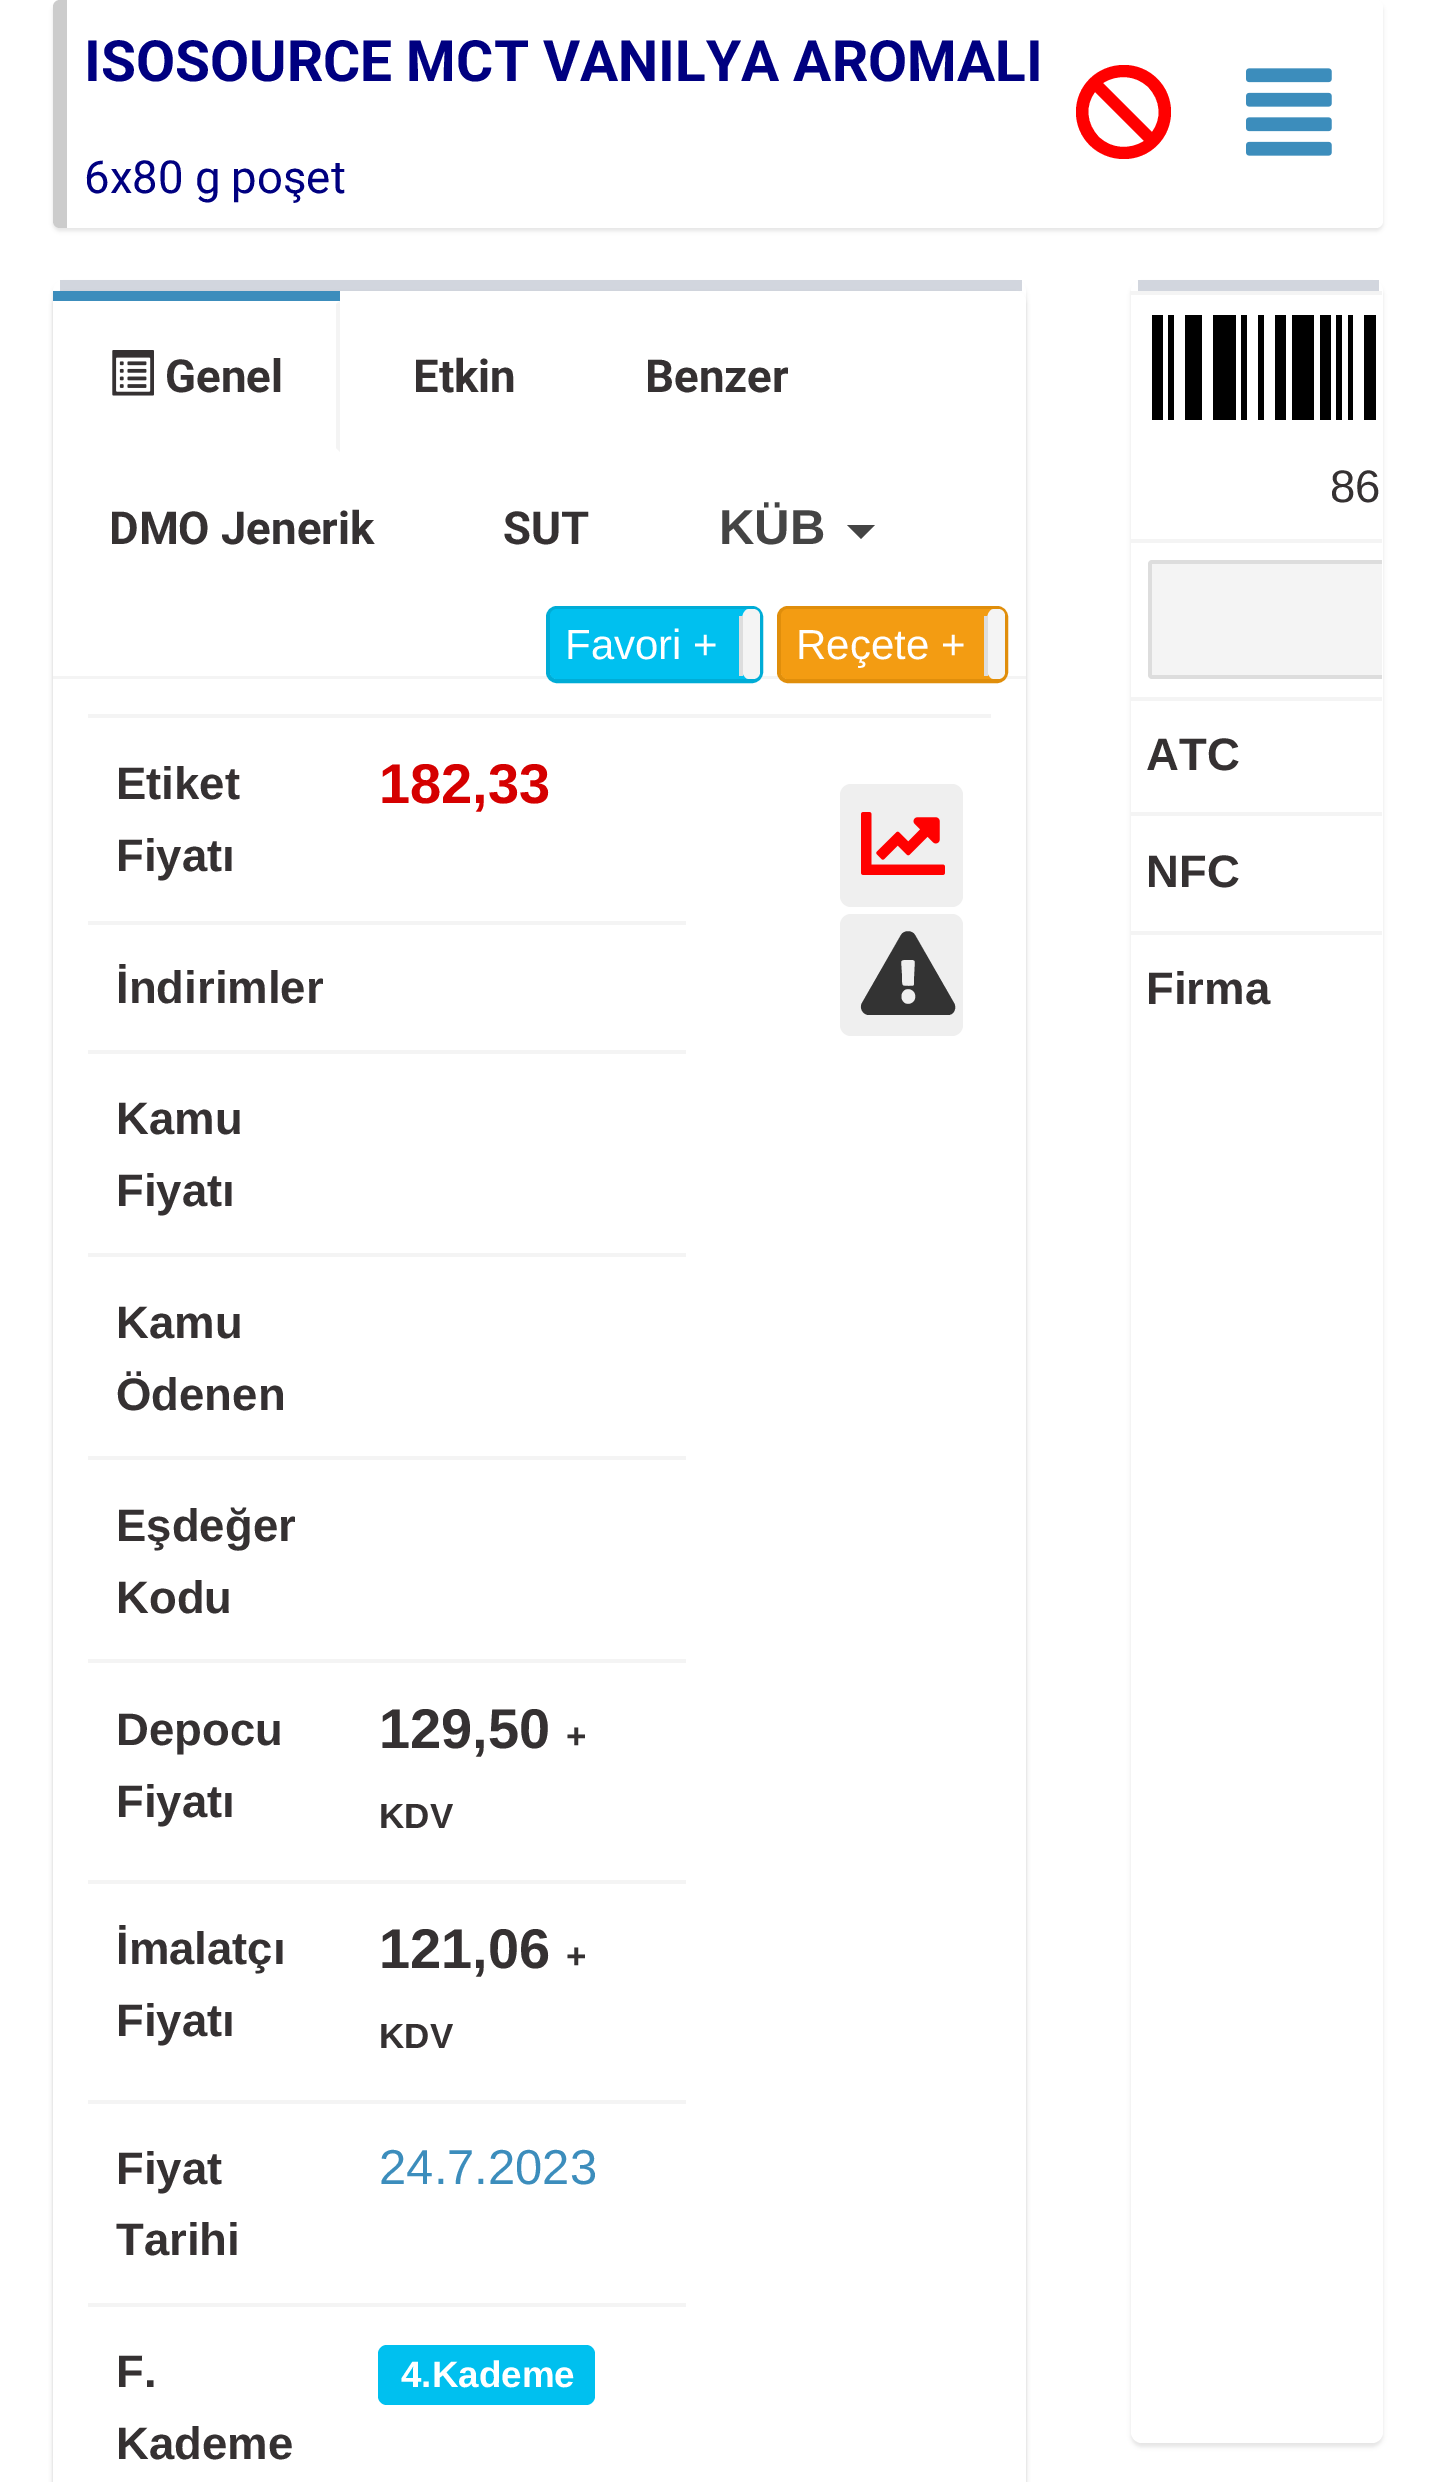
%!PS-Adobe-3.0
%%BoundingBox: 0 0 1432 2482
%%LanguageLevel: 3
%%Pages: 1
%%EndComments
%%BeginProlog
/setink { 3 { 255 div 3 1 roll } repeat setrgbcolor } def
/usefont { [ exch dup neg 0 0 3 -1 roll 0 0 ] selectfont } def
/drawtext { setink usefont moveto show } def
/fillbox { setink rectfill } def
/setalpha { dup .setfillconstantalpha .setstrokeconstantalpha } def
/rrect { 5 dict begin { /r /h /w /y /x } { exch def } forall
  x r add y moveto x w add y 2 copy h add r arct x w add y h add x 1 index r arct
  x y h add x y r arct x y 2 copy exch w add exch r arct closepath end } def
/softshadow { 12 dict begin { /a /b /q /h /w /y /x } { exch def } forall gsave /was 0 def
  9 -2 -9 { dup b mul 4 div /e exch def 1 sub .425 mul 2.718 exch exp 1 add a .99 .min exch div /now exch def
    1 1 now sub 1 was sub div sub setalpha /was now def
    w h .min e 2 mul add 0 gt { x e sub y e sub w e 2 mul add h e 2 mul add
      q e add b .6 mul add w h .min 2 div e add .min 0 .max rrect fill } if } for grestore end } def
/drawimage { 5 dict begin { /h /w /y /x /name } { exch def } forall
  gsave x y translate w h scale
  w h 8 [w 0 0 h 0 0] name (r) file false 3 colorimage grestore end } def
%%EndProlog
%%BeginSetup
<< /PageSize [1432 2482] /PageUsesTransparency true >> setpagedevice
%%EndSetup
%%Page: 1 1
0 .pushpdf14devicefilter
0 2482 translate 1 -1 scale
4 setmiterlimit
0 0 1432 2482 255 255 255 fillbox
0 0 0 setink
53 4 1330 227 7 2 0.1 softshadow
255 255 255 setink
53 0 1330 228 7 rrect fill
0.2 setalpha
0 0 0 setink
60 0 moveto 67 0 lineto 67 228 lineto 60 228 lineto 56 228 53 225 53 221 curveto 53 7 lineto 53 3 56 0 60 0 curveto closepath fill
1 setalpha
(ISOSOURCE MCT VANILYA AROMALI) 84 81 /Roboto-Bold 56.9 0 0 128 drawtext
255 0 0 setink
1124 65 moveto 1097 65 1076 86 1076 112 curveto 1076 138 1097 159 1124 159 curveto 1150 159 1171 138 1171 112 curveto 1171 86 1150 65 1124 65 curveto closepath 1148 87 moveto 1161 100 1162 119 1152 132 curveto 1103 83 lineto 1117 74 1136 75 1148 87 curveto closepath 1099 137 moveto 1086 124 1085 105 1095 92 curveto 1144 141 lineto 1130 150 1111 149 1099 137 curveto closepath fill
(assets/img1.rgb) 1246 68 86 88 drawimage
(6x80 g poşet) 84 193 /Roboto-Regular 45.5 0 0 128 drawtext
0 0 0 setink
53 284 973 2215 11 2 0.1 softshadow
255 255 255 setink
53 280 973 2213 11 rrect fill
60 280 962 11 210 214 222 fillbox
0 0 0 setink
53 294 973 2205 11 2 0.1 softshadow
255 255 255 setink
53 291 973 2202 11 rrect fill
53 676 973 3 244 244 244 fillbox
53 291 287 10 60 141 188 fillbox
244 244 244 setink
340 301 moveto 340 452 lineto 336 448 lineto 336 304 lineto closepath fill
(assets/img2.rgb) 112 350 42 46 drawimage
(Genel) 165 392 /Roboto-Bold 45.5 53 49 50 drawtext
(Etkin) 413 392 /Roboto-Bold 45.5 53 49 50 drawtext
(Benzer) 645 392 /Roboto-Bold 45.5 53 49 50 drawtext
(DMO Jenerik) 109 544 /Roboto-Bold 45.5 53 49 50 drawtext
(SUT) 503 544 /Roboto-Bold 45.5 53 49 50 drawtext
(KÜB) 719 544 /LiberationSans-Bold 49 68 68 68 drawtext
847 525 moveto 875 525 lineto 861 539 lineto closepath fill
0 172 214 setink
4 setlinewidth
548 608 213 73 9 rrect stroke
0 192 239 setink
550 609 210 70 7 rrect fill
(Favori +) 565 659 /LiberationSans-Regular 42 255 255 255 drawtext
244 244 244 setink
749 609 moveto 745 609 742 614 742 620 curveto 742 668 lineto 742 674 745 679 749 679 curveto 753 679 lineto 757 679 760 676 760 672 curveto 760 616 lineto 760 612 757 609 753 609 curveto closepath fill
739 616 4 60 221 221 221 fillbox
224 142 11 setink
779 608 227 73 9 rrect stroke
243 156 18 setink
781 609 224 70 7 rrect fill
(Reçete +) 796 659 /LiberationSans-Regular 42 255 255 255 drawtext
244 244 244 setink
994 609 moveto 990 609 987 614 987 620 curveto 987 668 lineto 987 674 990 679 994 679 curveto 998 679 lineto 1002 679 1005 676 1005 672 curveto 1005 616 lineto 1005 612 1002 609 998 609 curveto closepath fill
984 616 4 60 221 221 221 fillbox
88 714 903 4 244 244 244 fillbox
239 239 239 setink
840 784 123 123 11 rrect fill
(assets/img3.rgb) 861 812 84 63 drawimage
840 914 123 122 11 rrect fill
51 51 51 setink
954 1003 moveto 957 1008 954 1015 948 1015 curveto 869 1015 lineto 863 1015 859 1008 862 1003 curveto 901 935 lineto 904 930 912 930 915 935 curveto closepath 908 989 moveto 899 989 899 1004 908 1004 curveto 918 1004 918 989 908 989 curveto closepath 901 962 moveto 902 977 lineto 902 986 901 986 909 986 curveto 915 986 914 986 914 981 curveto 915 962 lineto 915 959 910 960 908 960 curveto 907 960 901 959 901 962 curveto closepath fill
(Etiket) 116 799 /LiberationSans-Bold 45.5 53 49 50 drawtext
(Fiyatı) 116 871 /LiberationSans-Bold 45.5 53 49 50 drawtext
(182,33) 379 803 /LiberationSans-Bold 56 213 0 0 drawtext
88 921 598 4 244 244 244 fillbox
(İndirimler) 116 1003 /LiberationSans-Bold 45.5 53 49 50 drawtext
88 1050 598 4 244 244 244 fillbox
(Kamu) 116 1134 /LiberationSans-Bold 45.5 53 49 50 drawtext
(Fiyatı) 116 1206 /LiberationSans-Bold 45.5 53 49 50 drawtext
88 1253 598 4 244 244 244 fillbox
(Kamu) 116 1338 /LiberationSans-Bold 45.5 53 49 50 drawtext
(Ödenen) 116 1410 /LiberationSans-Bold 45.5 53 49 50 drawtext
88 1456 598 4 244 244 244 fillbox
(Eşdeğer) 116 1541 /LiberationSans-Bold 45.5 53 49 50 drawtext
(Kodu) 116 1613 /LiberationSans-Bold 45.5 53 49 50 drawtext
(Depocu) 116 1745 /LiberationSans-Bold 45.5 53 49 50 drawtext
(Fiyatı) 116 1817 /LiberationSans-Bold 45.5 53 49 50 drawtext
88 1659 598 4 244 244 244 fillbox
(129,50) 379 1748 /LiberationSans-Bold 56 53 49 50 drawtext
(+) 566 1748 /LiberationSans-Bold 35 53 49 50 drawtext
(KDV) 379 1828 /LiberationSans-Bold 35 53 49 50 drawtext
(İmalatçı) 116 1964 /LiberationSans-Bold 45.5 53 49 50 drawtext
(Fiyatı) 116 2036 /LiberationSans-Bold 45.5 53 49 50 drawtext
88 1880 598 4 244 244 244 fillbox
(121,06) 379 1968 /LiberationSans-Bold 56 53 49 50 drawtext
(+) 566 1968 /LiberationSans-Bold 35 53 49 50 drawtext
(KDV) 379 2048 /LiberationSans-Bold 35 53 49 50 drawtext
(Fiyat) 116 2184 /LiberationSans-Bold 45.5 53 49 50 drawtext
(Tarihi) 116 2255 /LiberationSans-Bold 45.5 53 49 50 drawtext
88 2100 598 4 244 244 244 fillbox
(24.7.2023) 379 2184 /LiberationSans-Regular 49 60 141 188 drawtext
(F.) 116 2387 /LiberationSans-Bold 45.5 53 49 50 drawtext
(Kademe) 116 2459 /LiberationSans-Bold 45.5 53 49 50 drawtext
88 2303 598 4 244 244 244 fillbox
0 192 239 setink
378 2345 217 60 9 rrect fill
(4.Kademe) 401 2387 /LiberationSans-Bold 36.75 255 255 255 drawtext
0 0 0 setink
1131 284 252 2163 11 2 0.1 softshadow
255 255 255 setink
1131 280 252 2163 11 rrect fill
1138 280 241 11 210 214 222 fillbox
1130 291 252 4 244 244 244 fillbox
(assets/img4.rgb) 1152 315 224 105 drawimage
(86) 1330 502 /LiberationSans-Regular 45.5 53 49 50 drawtext
1130 539 252 4 244 244 244 fillbox
1152 560 moveto 1382 560 lineto 1382 679 lineto 1152 679 lineto 1150 679 1148 677 1148 675 curveto 1148 564 lineto 1148 562 1150 560 1152 560 curveto closepath fill
221 221 221 setink
1152 560 moveto 1150 560 1148 562 1148 564 curveto 1148 675 lineto 1148 677 1150 679 1152 679 curveto 1382 679 lineto 1382 675 lineto 1152 675 lineto 1152 564 lineto 1382 564 lineto 1382 560 lineto closepath fill
1130 697 252 4 244 244 244 fillbox
(ATC) 1146 770 /LiberationSans-Bold 45.5 53 49 50 drawtext
1130 812 252 4 244 244 244 fillbox
(NFC) 1146 887 /LiberationSans-Bold 45.5 53 49 50 drawtext
1130 931 252 4 244 244 244 fillbox
(Firma) 1146 1004 /LiberationSans-Bold 45.5 53 49 50 drawtext
.poppdf14devicefilter showpage
%%EOF
